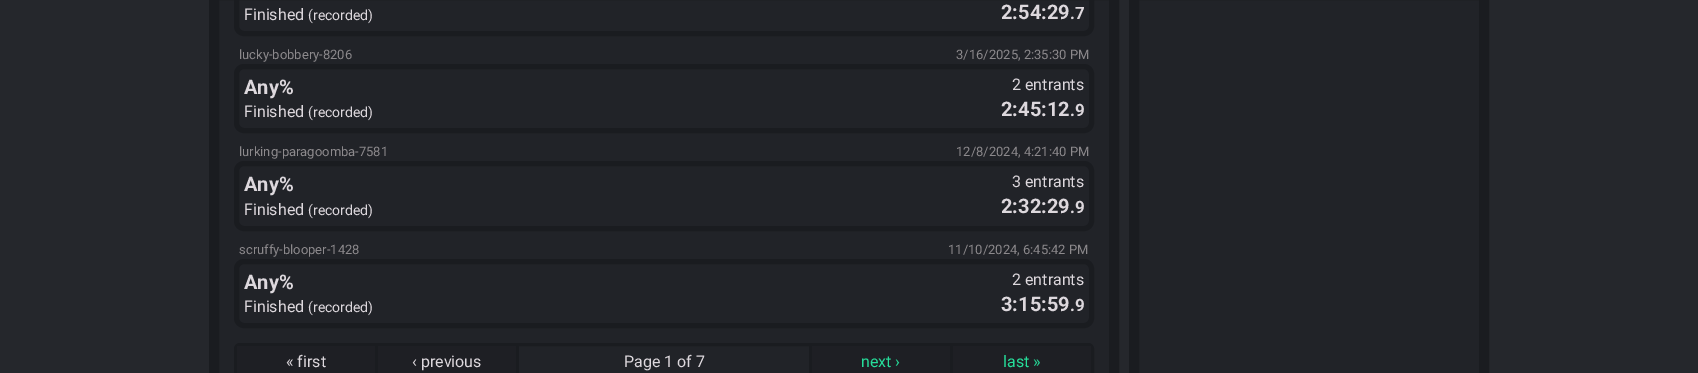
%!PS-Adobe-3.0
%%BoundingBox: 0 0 1698 373
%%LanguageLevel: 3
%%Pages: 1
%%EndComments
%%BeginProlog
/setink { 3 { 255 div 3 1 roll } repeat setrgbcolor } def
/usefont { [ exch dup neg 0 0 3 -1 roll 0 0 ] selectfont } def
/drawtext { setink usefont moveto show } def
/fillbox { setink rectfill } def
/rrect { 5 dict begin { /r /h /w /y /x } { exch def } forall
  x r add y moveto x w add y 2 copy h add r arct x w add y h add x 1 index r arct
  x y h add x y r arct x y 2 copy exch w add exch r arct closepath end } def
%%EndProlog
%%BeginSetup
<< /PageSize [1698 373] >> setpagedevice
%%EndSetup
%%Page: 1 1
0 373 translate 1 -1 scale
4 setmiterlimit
0 0 1698 373 37 39 44 fillbox
33 35 40 setink
214 -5 moveto 1114 -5 lineto 1114 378 lineto 214 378 lineto closepath gsave fill grestore
26 28 32 setink
10 setlinewidth
stroke
5 setlinewidth
236.5 -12.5 855 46 7.5 rrect stroke
(Finished) 244 20 /Roboto-Regular 16 221 216 221 drawtext
(\(recorded\)) 308 20 /Roboto-Regular 14 221 216 221 drawtext
(2:54:29) 1001 19 /Roboto-Bold 20 221 216 221 drawtext
(.7) 1070 19 /Roboto-Bold 17 221 216 221 drawtext
(lucky-bobbery-8206) 239 59 /Roboto-Regular 13 140 137 140 drawtext
(3/16/2025, 2:35:30 PM) 956 59 /Roboto-Regular 13 140 137 140 drawtext
26 28 32 setink
236.5 66.5 855 64 7.5 rrect stroke
(Any%) 244 94 /Roboto-Bold 20 221 216 221 drawtext
(Finished) 244 117 /Roboto-Regular 16 221 216 221 drawtext
(\(recorded\)) 308 117 /Roboto-Regular 14 221 216 221 drawtext
(2 entrants) 1012 90 /Roboto-Regular 16 221 216 221 drawtext
(2:45:12) 1001 116 /Roboto-Bold 20 221 216 221 drawtext
(.9) 1070 116 /Roboto-Bold 17 221 216 221 drawtext
(lurking-paragoomba-7581) 239 156 /Roboto-Regular 13 140 137 140 drawtext
(12/8/2024, 4:21:40 PM) 956 156 /Roboto-Regular 13 140 137 140 drawtext
26 28 32 setink
236.5 163.5 855 65 7.5 rrect stroke
(Any%) 244 191 /Roboto-Bold 20 221 216 221 drawtext
(Finished) 244 215 /Roboto-Regular 16 221 216 221 drawtext
(\(recorded\)) 308 215 /Roboto-Regular 14 221 216 221 drawtext
(3 entrants) 1012 187 /Roboto-Regular 16 221 216 221 drawtext
(2:32:29) 1001 213 /Roboto-Bold 20 221 216 221 drawtext
(.9) 1070 213 /Roboto-Bold 17 221 216 221 drawtext
(scruffy-blooper-1428) 239 254 /Roboto-Regular 13 140 137 140 drawtext
(11/10/2024, 6:45:42 PM) 948 254 /Roboto-Regular 13 140 137 140 drawtext
26 28 32 setink
236.5 261.5 855 64 7.5 rrect stroke
(Any%) 244 289 /Roboto-Bold 20 221 216 221 drawtext
(Finished) 244 312 /Roboto-Regular 16 221 216 221 drawtext
(\(recorded\)) 308 312 /Roboto-Regular 14 221 216 221 drawtext
(2 entrants) 1012 285 /Roboto-Regular 16 221 216 221 drawtext
(3:15:59) 1001 311 /Roboto-Bold 20 221 216 221 drawtext
(.9) 1070 311 /Roboto-Bold 17 221 216 221 drawtext
26 28 32 setink
3 setlinewidth
235.5 344.5 857 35 4.5 rrect stroke
237 346 138 27 30 31 36 fillbox
(« first) 286 367 /Roboto-Regular 16 221 216 221 drawtext
378 346 138 27 30 31 36 fillbox
375 346 3 27 26 28 32 fillbox
(‹ previous) 412 367 /Roboto-Regular 16 221 216 221 drawtext
516 346 3 27 26 28 32 fillbox
(Page 1 of 7) 624 367 /Roboto-Regular 16 221 216 221 drawtext
812 346 138 27 30 31 36 fillbox
809 346 3 27 26 28 32 fillbox
(next ›) 861 367 /Roboto-Regular 16 38 221 154 drawtext
953 346 138 27 30 31 36 fillbox
950 346 3 27 26 28 32 fillbox
(last ») 1003 367 /Roboto-Regular 16 38 221 154 drawtext
33 35 40 setink
1134 -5 moveto 1484 -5 lineto 1484 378 lineto 1134 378 lineto closepath gsave fill grestore
26 28 32 setink
10 setlinewidth
stroke
showpage
%%EOF
